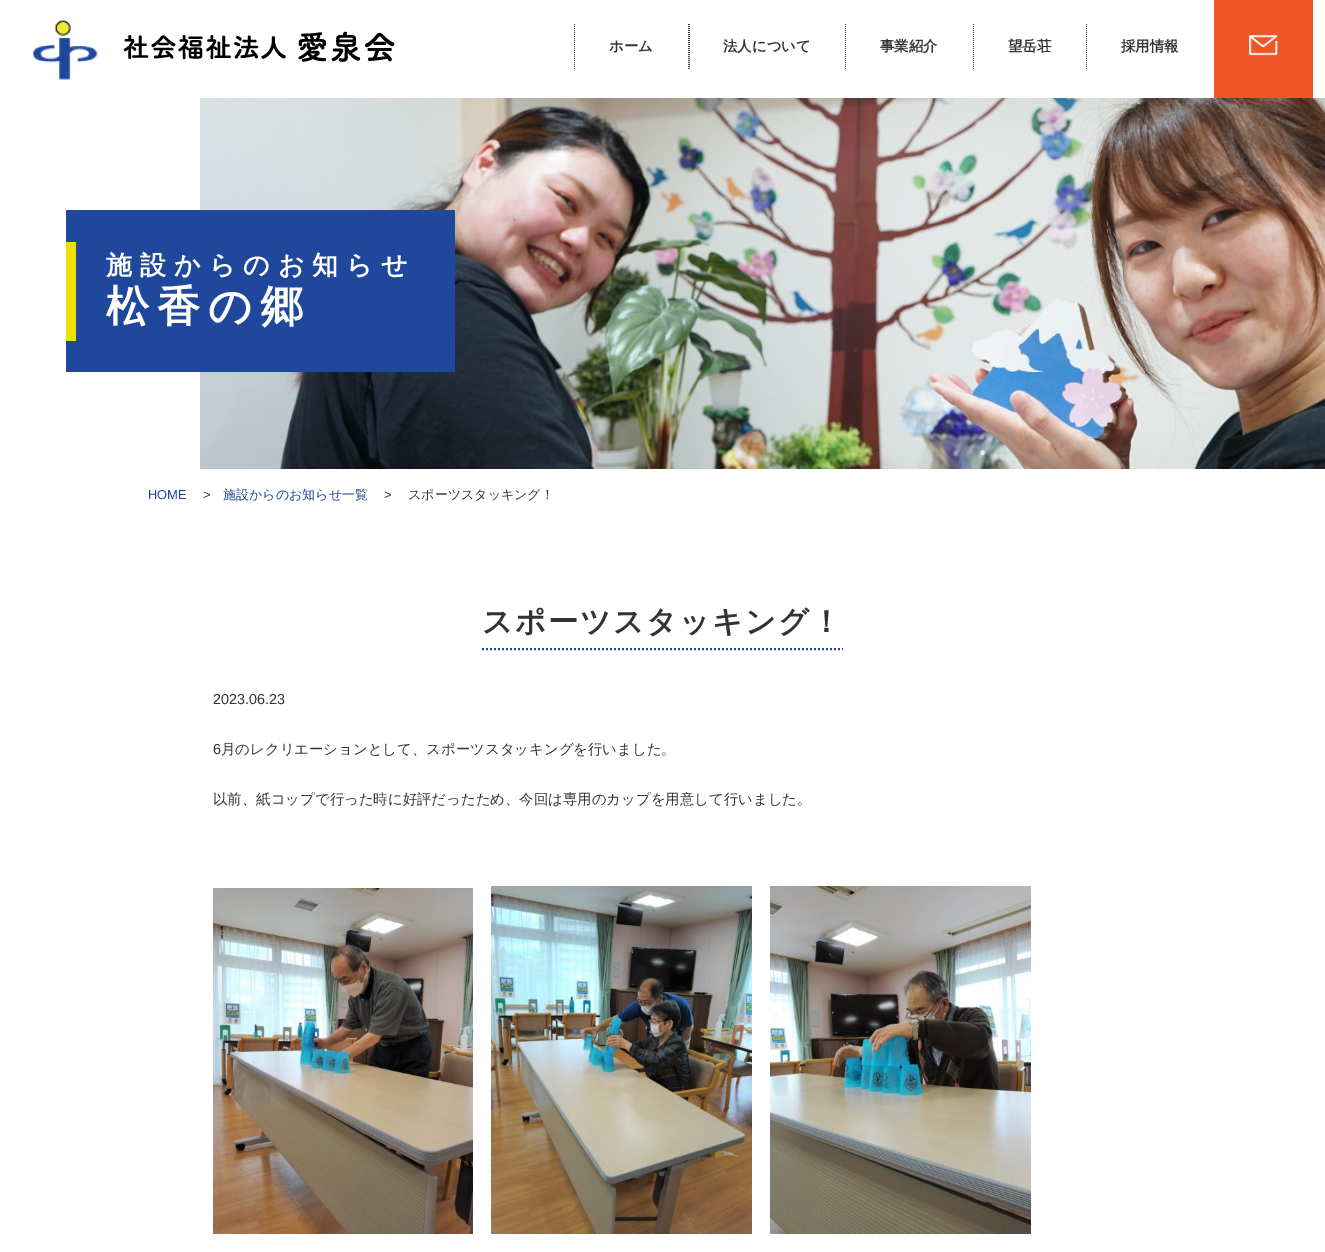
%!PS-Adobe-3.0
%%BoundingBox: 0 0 1325 1252
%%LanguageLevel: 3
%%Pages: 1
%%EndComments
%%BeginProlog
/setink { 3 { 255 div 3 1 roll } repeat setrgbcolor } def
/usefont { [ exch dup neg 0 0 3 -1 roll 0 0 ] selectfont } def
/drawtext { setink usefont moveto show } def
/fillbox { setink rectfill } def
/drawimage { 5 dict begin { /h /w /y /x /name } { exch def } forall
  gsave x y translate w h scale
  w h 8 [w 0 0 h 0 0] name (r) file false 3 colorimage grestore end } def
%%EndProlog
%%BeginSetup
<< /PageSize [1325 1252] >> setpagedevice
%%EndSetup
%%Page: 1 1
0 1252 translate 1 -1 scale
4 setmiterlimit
0 0 1325 1252 255 255 255 fillbox
(assets/img1.rgb) 33 20 362 60 drawimage
(assets/img2.rgb) 574 24 1 45 drawimage
(ホーム) 609 51 /WenQuanYiZenHei-Bold 14.4 51 51 51 drawtext
(assets/img3.rgb) 688 24 2 45 drawimage
(法人について) 723 51 /WenQuanYiZenHei-Bold 14.4 51 51 51 drawtext
(assets/img2.rgb) 845 24 1 45 drawimage
(事業紹介) 880 51 /WenQuanYiZenHei-Bold 14.4 51 51 51 drawtext
(assets/img2.rgb) 973 24 1 45 drawimage
(望岳荘) 1008 51 /WenQuanYiZenHei-Bold 14.4 51 51 51 drawtext
(assets/img2.rgb) 1086 24 1 45 drawimage
(採用情報) 1121 51 /WenQuanYiZenHei-Bold 14.4 51 51 51 drawtext
1214 0 99 98 240 85 39 fillbox
(assets/img4.rgb) 1249 35 29 21 drawimage
(assets/img5.rgb) 200 98 1125 371 drawimage
66 210 389 162 31 71 156 fillbox
66 242 10 99 238 225 0 fillbox
/WenQuanYiZenHei-Bold 26 usefont
255 255 255 setink
106 274 moveto 8 0 (施設からのお知らせ) ashow
/WenQuanYiZenHei-Bold 43 usefont
106 321 moveto 8 0 (松香の郷) ashow
(HOME) 148 499 /LiberationSans-Regular 13 31 71 156 drawtext
(>) 203 499 /LiberationSans-Regular 13 51 51 51 drawtext
(施設からのお知らせ一覧) 223 499 /WenQuanYiZenHei-Medium 13 31 71 156 drawtext
(>) 384 499 /LiberationSans-Regular 13 51 51 51 drawtext
(スポーツスタッキング！) 408 499 /WenQuanYiZenHei-Medium 13 51 51 51 drawtext
31 71 156 setink
2 setlinewidth
[2 2] 0 setdash
482 649 moveto 843 649 lineto stroke
/WenQuanYiZenHei-Bold 30.25 usefont
51 51 51 setink
482 632 moveto 2 0 (スポーツスタッキング！) ashow
(2023.06.23) 213 704 /LiberationSans-Regular 14.4 51 51 51 drawtext
(6) 213 754 /LiberationSans-Regular 14.4 51 51 51 drawtext
(月のレクリエーションとして、スポーツスタッキングを行いました。) 221 754 /WenQuanYiZenHei-Medium 14.4 51 51 51 drawtext
(以前、紙コップで行った時に好評だったため、今回は専用のカップを用意して行いました。) 213 804 /WenQuanYiZenHei-Medium 14.4 51 51 51 drawtext
(assets/img6.rgb) 213 888 260 346 drawimage
(assets/img7.rgb) 491 886 261 348 drawimage
(assets/img8.rgb) 770 886 261 348 drawimage
showpage
%%EOF
